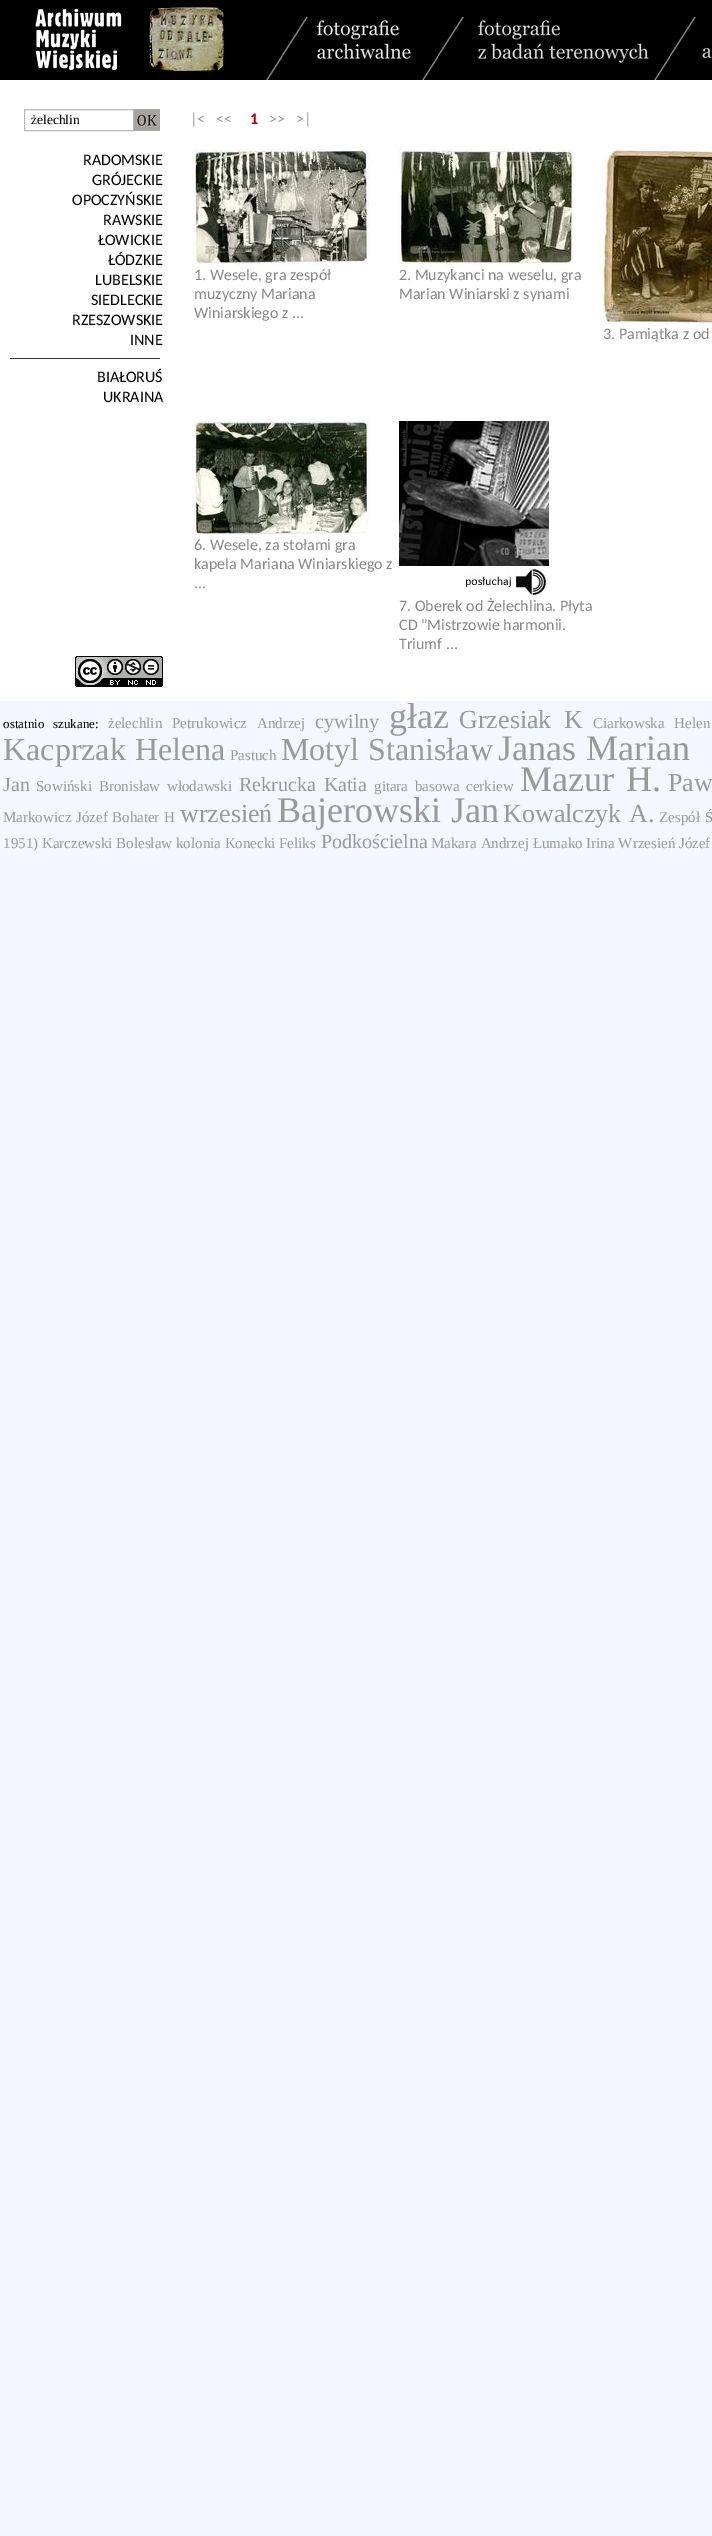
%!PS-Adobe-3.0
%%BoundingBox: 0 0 712 2536
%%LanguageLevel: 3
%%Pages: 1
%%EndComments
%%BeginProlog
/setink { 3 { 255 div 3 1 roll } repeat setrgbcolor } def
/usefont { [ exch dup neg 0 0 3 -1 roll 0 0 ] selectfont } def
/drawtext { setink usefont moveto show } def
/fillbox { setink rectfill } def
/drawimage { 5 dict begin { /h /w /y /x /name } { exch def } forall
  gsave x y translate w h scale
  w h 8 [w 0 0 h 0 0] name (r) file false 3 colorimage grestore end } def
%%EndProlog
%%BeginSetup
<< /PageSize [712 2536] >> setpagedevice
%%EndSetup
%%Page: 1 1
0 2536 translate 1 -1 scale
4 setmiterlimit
0 0 712 2536 244 247 253 fillbox
0 0 712 80 0 0 0 fillbox
(assets/img1.rgb) 35 7 677 73 drawimage
0 80 712 621 255 255 255 fillbox
184 184 184 setink
24.5 109.5 109 21 rectstroke
(żelechlin) 31 124 /LiberationSerif-Regular 13.5 0 0 0 drawtext
(assets/img2.rgb) 134 109 26 22 drawimage
(RADOMSKIE) 83 165 /Carlito-Regular 16 0 0 0 drawtext
(GRÓJECKIE) 92 185 /Carlito-Regular 16 0 0 0 drawtext
(OPOCZYŃSKIE) 72 205 /Carlito-Regular 16 0 0 0 drawtext
(RAWSKIE) 103 225 /Carlito-Regular 16 0 0 0 drawtext
(ŁOWICKIE) 98 245 /Carlito-Regular 16 0 0 0 drawtext
(ŁÓDZKIE) 108 265 /Carlito-Regular 16 0 0 0 drawtext
(LUBELSKIE) 95 285 /Carlito-Regular 16 0 0 0 drawtext
(SIEDLECKIE) 91 305 /Carlito-Regular 16 0 0 0 drawtext
(RZESZOWSKIE) 72 325 /Carlito-Regular 16 0 0 0 drawtext
(INNE) 130 345 /Carlito-Regular 16 0 0 0 drawtext
10 358 150 1 51 51 51 fillbox
(BIAŁORUŚ) 97 382 /Carlito-Regular 16 0 0 0 drawtext
(UKRAINA) 103 402 /Carlito-Regular 16 0 0 0 drawtext
(|<   <<) 190 124 /Carlito-Regular 16 153 153 153 drawtext
(1) 250 124 /Carlito-Bold 16 187 0 0 drawtext
(>>   >|) 269 124 /Carlito-Regular 16 153 153 153 drawtext
(assets/img3.rgb) 194 149 175 116 drawimage
(1. Wesele, gra zespół) 194 280 /Carlito-Regular 16 136 136 136 drawtext
(muzyczny Mariana) 194 299 /Carlito-Regular 16 136 136 136 drawtext
(Winiarskiego z ...) 194 318 /Carlito-Regular 16 136 136 136 drawtext
(assets/img4.rgb) 399 149 175 116 drawimage
(2. Muzykanci na weselu, gra) 399 280 /Carlito-Regular 16 136 136 136 drawtext
(Marian Winiarski z synami) 399 299 /Carlito-Regular 16 136 136 136 drawtext
(assets/img5.rgb) 603 149 109 175 drawimage
(3. Pamiątka z od) 603 339 /Carlito-Regular 16 136 136 136 drawtext
(assets/img6.rgb) 194 421 175 114 drawimage
(6. Wesele, za stołami gra) 194 550 /Carlito-Regular 16 136 136 136 drawtext
(kapela Mariana Winiarskiego z) 194 569 /Carlito-Regular 16 136 136 136 drawtext
(...) 194 588 /Carlito-Regular 16 136 136 136 drawtext
(assets/img7.rgb) 399 421 150 175 drawimage
(7. Oberek od Żelechlina. Płyta) 399 611 /Carlito-Regular 16 136 136 136 drawtext
(CD "Mistrzowie harmonii.) 399 630 /Carlito-Regular 16 136 136 136 drawtext
(Triumf ...) 399 649 /Carlito-Regular 16 136 136 136 drawtext
(assets/img8.rgb) 75 656 88 31 drawimage
(ostatnio) 3 728 /LiberationSerif-Regular 13 0 0 0 drawtext
(szukane:) 53 728 /LiberationSerif-Regular 13 0 0 0 drawtext
(żelechlin) 108 728 /LiberationSerif-Regular 15 153 153 153 drawtext
172 728 moveto 6 0 32 (Petrukowicz Andrzej) widthshow
(cywilny) 315 728 /LiberationSerif-Regular 20 153 153 153 drawtext
(głaz) 389 728 /LiberationSerif-Regular 36 153 153 153 drawtext
/LiberationSerif-Regular 26 usefont
459 728 moveto 6 0 32 (Grzesiak K) widthshow
/LiberationSerif-Regular 15 usefont
593 728 moveto 6 0 32 (Ciarkowska Helen) widthshow
/LiberationSerif-Regular 32 usefont
3 760 moveto 1 0 32 (Kacprzak Helena) widthshow
(Pastuch) 230 760 /LiberationSerif-Regular 15 153 153 153 drawtext
/LiberationSerif-Regular 32 usefont
281 760 moveto 1 0 32 (Motyl Stanisław) widthshow
/LiberationSerif-Regular 36 usefont
498 760 moveto 1 0 32 (Janas Marian) widthshow
(Jan) 3 791 /LiberationSerif-Regular 20 153 153 153 drawtext
/LiberationSerif-Regular 15 usefont
36 791 moveto 3 0 32 (Sowiński Bronisław) widthshow
(włodawski) 167 791 /LiberationSerif-Regular 15 153 153 153 drawtext
/LiberationSerif-Regular 20 usefont
239 791 moveto 3 0 32 (Rekrucka Katia) widthshow
/LiberationSerif-Regular 15 usefont
374 791 moveto 3 0 32 (gitara basowa) widthshow
(cerkiew) 466 791 /LiberationSerif-Regular 15 153 153 153 drawtext
/LiberationSerif-Regular 36 usefont
520 791 moveto 3 0 32 (Mazur H.) widthshow
/LiberationSerif-Regular 26 usefont
668 791 moveto 3 0 32 (Paw) widthshow
/LiberationSerif-Regular 15 usefont
3 822 moveto 1 0 32 (Markowicz Józef) widthshow
112 822 moveto 1 0 32 (Bohater H) widthshow
(wrzesień) 180 822 /LiberationSerif-Regular 26 153 153 153 drawtext
/LiberationSerif-Regular 36 usefont
277 822 moveto 1 0 32 (Bajerowski Jan) widthshow
/LiberationSerif-Regular 26 usefont
503 822 moveto 1 0 32 (Kowalczyk A.) widthshow
/LiberationSerif-Regular 15 usefont
659 822 moveto 1 0 32 (Zespół Ś) widthshow
(1951\) Karczewski Bolesław kolonia Konecki Feliks) 3 848 /LiberationSerif-Regular 15 153 153 153 drawtext
(Podkościelna) 321 848 /LiberationSerif-Regular 20 153 153 153 drawtext
(Makara Andrzej Łumako Irina Wrzesień Józef) 431 848 /LiberationSerif-Regular 15 153 153 153 drawtext
showpage
%%EOF
